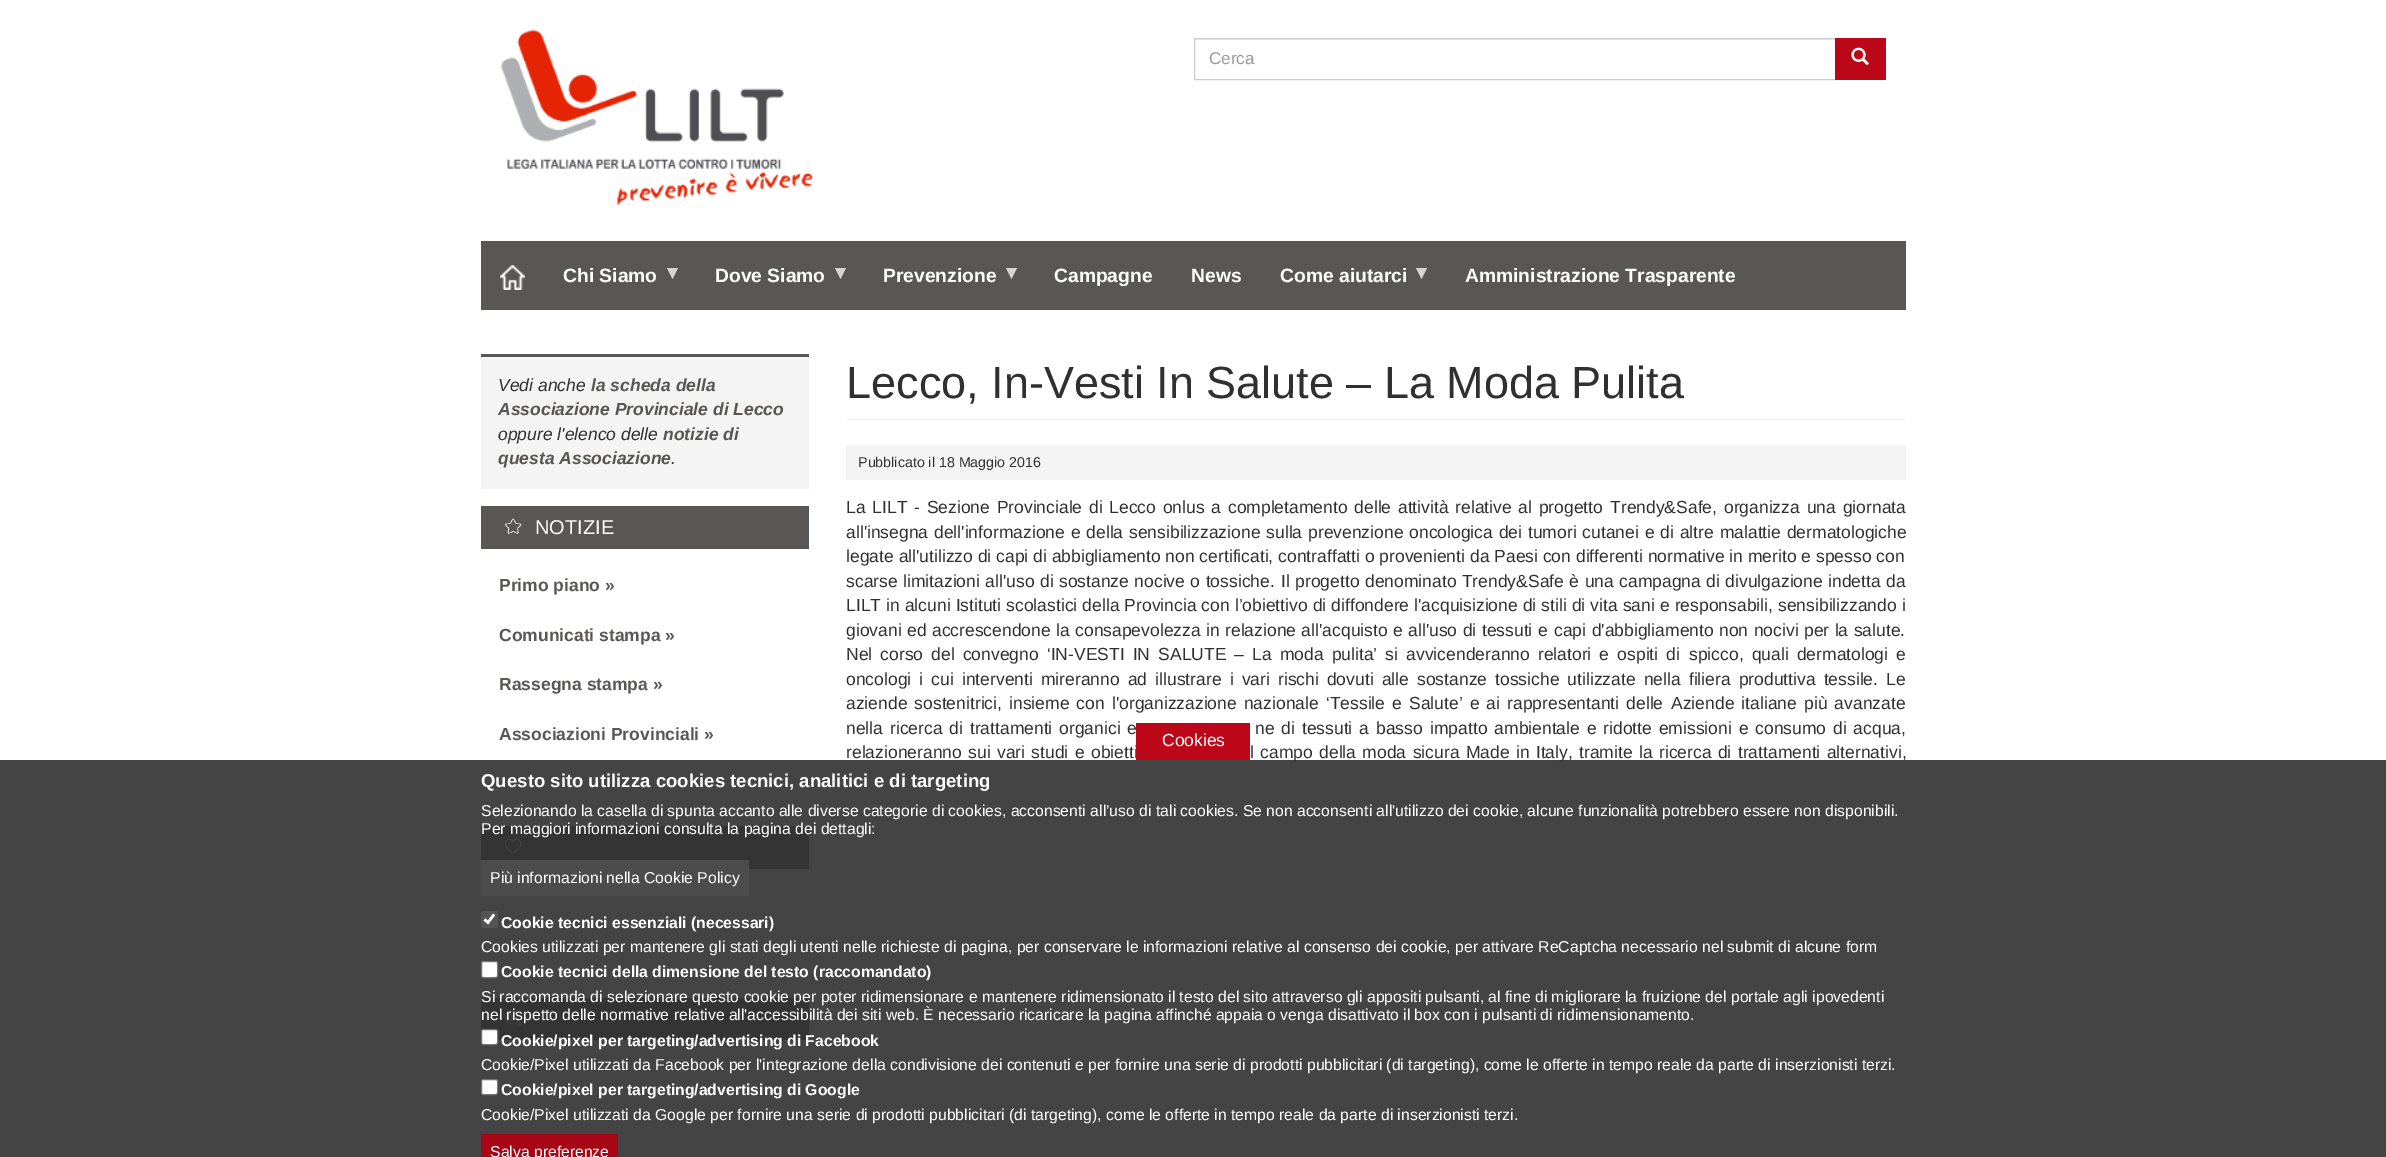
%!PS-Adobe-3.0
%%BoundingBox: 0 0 2386 1157
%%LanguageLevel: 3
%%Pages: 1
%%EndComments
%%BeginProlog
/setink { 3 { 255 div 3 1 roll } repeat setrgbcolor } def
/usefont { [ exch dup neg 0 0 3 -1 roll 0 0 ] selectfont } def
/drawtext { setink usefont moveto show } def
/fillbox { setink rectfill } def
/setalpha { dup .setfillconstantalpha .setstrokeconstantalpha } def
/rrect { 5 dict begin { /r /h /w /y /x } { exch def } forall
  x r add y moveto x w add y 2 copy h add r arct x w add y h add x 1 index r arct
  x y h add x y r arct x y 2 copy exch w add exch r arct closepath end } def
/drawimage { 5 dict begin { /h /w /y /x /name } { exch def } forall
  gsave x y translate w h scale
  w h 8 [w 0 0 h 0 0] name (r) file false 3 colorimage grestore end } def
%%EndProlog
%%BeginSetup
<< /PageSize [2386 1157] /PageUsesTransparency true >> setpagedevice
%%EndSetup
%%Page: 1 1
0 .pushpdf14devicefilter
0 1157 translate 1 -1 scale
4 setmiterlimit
0 0 2386 1157 255 255 255 fillbox
(assets/img1.rgb) 501 30 312 175 drawimage
1195 39 640 1 236 236 236 fillbox
204 204 204 setink
1194.5 38.5 641 41 rectstroke
(Cerca) 1209 64 /LiberationSans-Regular 17 153 153 153 drawtext
1835 38 51 42 188 7 24 fillbox
(assets/img2.rgb) 1851 47 18 18 drawimage
481 241 1425 69 88 87 85 fillbox
(assets/img3.rgb) 500 265 25 25 drawimage
(Chi Siamo) 563 282 /LiberationSans-Bold 19.25 255 255 255 drawtext
(▼) 663 279 /LiberationSans-Bold 19.25 213 213 213 drawtext
(Dove Siamo) 715 282 /LiberationSans-Bold 19.25 255 255 255 drawtext
(▼) 831 279 /LiberationSans-Bold 19.25 213 213 213 drawtext
(Prevenzione) 883 282 /LiberationSans-Bold 19.25 255 255 255 drawtext
(▼) 1002 279 /LiberationSans-Bold 19.25 213 213 213 drawtext
(Campagne) 1054 282 /LiberationSans-Bold 19.25 255 255 255 drawtext
(News) 1191 282 /LiberationSans-Bold 19.25 255 255 255 drawtext
(Come aiutarci) 1280 282 /LiberationSans-Bold 19.25 255 255 255 drawtext
(▼) 1412 279 /LiberationSans-Bold 19.25 213 213 213 drawtext
(Amministrazione Trasparente) 1465 282 /LiberationSans-Bold 19.25 255 255 255 drawtext
481 357 328 132 244 244 244 fillbox
481 354 328 3 88 87 85 fillbox
(Vedi anche) 498 391 /LiberationSans-Italic 17.5 48 48 48 drawtext
(la scheda della) 591 391 /LiberationSans-BoldItalic 17.5 88 87 85 drawtext
(Associazione Provinciale di Lecco) 498 415 /LiberationSans-BoldItalic 17.5 88 87 85 drawtext
(oppure l'elenco delle) 498 440 /LiberationSans-Italic 17.5 48 48 48 drawtext
(notizie di) 663 440 /LiberationSans-BoldItalic 17.5 88 87 85 drawtext
(questa Associazione) 498 464 /LiberationSans-BoldItalic 17.5 88 87 85 drawtext
(.) 671 464 /LiberationSans-Italic 17.5 48 48 48 drawtext
481 506 328 43 88 87 85 fillbox
(assets/img4.rgb) 505 518 17 16 drawimage
(NOTIZIE) 535 534 /LiberationSans-Regular 20 255 255 255 drawtext
(Primo piano ») 499 591 /LiberationSans-Bold 17.5 88 87 85 drawtext
(Comunicati stampa ») 499 641 /LiberationSans-Bold 17.5 88 87 85 drawtext
(Rassegna stampa ») 499 690 /LiberationSans-Bold 17.5 88 87 85 drawtext
(Associazioni Provinciali ») 499 740 /LiberationSans-Bold 17.5 88 87 85 drawtext
481 826 328 43 88 87 85 fillbox
(assets/img5.rgb) 505 838 17 16 drawimage
481 998 328 42 88 87 85 fillbox
(assets/img6.rgb) 505 1010 17 17 drawimage
846 419 1060 1 238 238 238 fillbox
(Lecco, In-Vesti In Salute – La Moda Pulita) 846 398 /LiberationSans-Regular 45 48 48 48 drawtext
846 445 1060 35 244 244 244 fillbox
(Pubblicato il 18 Maggio 2016) 858 467 /LiberationSans-Regular 14.25 48 48 48 drawtext
/LiberationSans-Regular 17.5 usefont
846 513 moveto 1.9 0 32 (La LILT - Sezione Provinciale di Lecco onlus a completamento delle attività relative al progetto) widthshow
1610 513 moveto 2 0 32 (Trendy&Safe, organizza una giornata) widthshow
846 538 moveto 1 0 32 (all'insegna dell'informazione e della sensibilizzazione sulla) widthshow
1308 538 moveto 1 0 32 (prevenzione oncologica dei tumori cutanei e di altre malattie dermatologiche) widthshow
(legate all'utilizzo di capi di abbigliamento non certificati, contraffatti o provenienti da Paesi con differenti normative in merito e spesso con) 846 562 /LiberationSans-Regular 17.5 48 48 48 drawtext
846 587 moveto 0.6 0 32 (scarse limitazioni all'uso di sostanze nocive o tossiche.) widthshow
1281 587 moveto 0.6 0 32 (Il progetto denominato Trendy&Safe è una campagna di divulgazione indetta da) widthshow
846 611 moveto 0.2 0 32 (LILT in alcuni Istituti scolastici della Provincia con l’obiettivo di diffondere l'acquisizione di stili di vita sani e responsabili,) widthshow
(sensibilizzando i) 1778 611 /LiberationSans-Regular 17.5 48 48 48 drawtext
846 636 moveto 0.6 0 32 (giovani ed accrescendone la consapevolezza in relazione all'acquisto e all'uso di tessuti e) widthshow
1554 636 moveto 0.6 0 32 (capi d'abbigliamento non nocivi per la salute.) widthshow
846 660 moveto 3.25 0 32 (Nel corso del convegno ‘IN-VESTI IN SALUTE – La moda pulita’ si avvicenderanno relatori e ospiti di) widthshow
1689 660 moveto 3.25 0 32 (spicco, quali dermatologi e) widthshow
846 685 moveto 3.25 0 32 (oncologi i cui interventi mireranno ad illustrare i vari rischi dovuti alle) widthshow
1417 685 moveto 3.25 0 32 (sostanze tossiche utilizzate nella filiera produttiva tessile.) widthshow
(Le) 1886 685 /LiberationSans-Regular 17.5 48 48 48 drawtext
846 709 moveto 2.25 0 32 (aziende sostenitrici, insieme con l'organizzazione nazionale ‘Tessile e Salute’ e ai rappresentanti delle) widthshow
1671 709 moveto 2.25 0 32 (Aziende italiane più avanzate) widthshow
846 734 moveto 2 0 32 (nella ricerca di trattamenti organici e) widthshow
1255 734 moveto 2 0 32 (ne di tessuti a basso) widthshow
1430 734 moveto 2 0 32 (impatto ambientale e ridotte emissioni e consumo di acqua,) widthshow
846 758 moveto 1.5 0 32 (relazioneranno sui vari studi e obietti) widthshow
1250 758 moveto 1.5 0 32 (l campo della moda sicura Made in Italy, tramite la ricerca di trattamenti alternativi,) widthshow
1136 723 114 37 188 7 24 fillbox
(Cookies) 1162 746 /LiberationSans-Regular 17.5 255 255 255 drawtext
0.9 setalpha
0 760 2386 397 48 48 48 fillbox
1 setalpha
(Questo sito utilizza cookies tecnici, analitici e di targeting) 481 787 /LiberationSans-Bold 18.6 255 255 255 drawtext
(Selezionando la casella di spunta accanto alle diverse categorie di cookies, acconsenti all’uso di tali cookies. Se non acconsenti all'utilizzo dei cookie, alcune funzionalità potrebbero essere non disponibili.) 481 816 /LiberationSans-Regular 15.75 255 255 255 drawtext
(Per maggiori informazioni consulta la pagina dei dettagli:) 481 834 /LiberationSans-Regular 15.75 255 255 255 drawtext
481 860 268 36 76 76 76 fillbox
(Più informazioni nella Cookie Policy) 490 883 /LiberationSans-Regular 15.75 255 255 255 drawtext
84 84 84 setink
481 911 17 17 2.5 rrect fill
255 255 255 setink
2.6 setlinewidth
484.5 919.5 moveto 488 922.5 lineto 494 914.5 lineto stroke
(Cookie tecnici essenziali \(necessari\)) 501 928 /LiberationSans-Bold 15.75 255 255 255 drawtext
(Cookies utilizzati per mantenere gli stati degli utenti nelle richieste di pagina, per conservare le informazioni relative al consenso dei cookie, per attivare ReCaptcha necessario nel submit di alcune form) 481 952 /LiberationSans-Regular 15.75 255 255 255 drawtext
481.5 961.5 16 16 2 rrect gsave fill grestore
118 118 118 setink
1 setlinewidth
stroke
(Cookie tecnici della dimensione del testo \(raccomandato\)) 501 977 /LiberationSans-Bold 15.75 255 255 255 drawtext
(Si raccomanda di selezionare questo cookie per poter ridimensionare e mantenere ridimensionato il testo del sito attraverso gli appositi pulsanti, al fine di migliorare la fruizione del portale agli ipovedenti) 481 1002 /LiberationSans-Regular 15.75 255 255 255 drawtext
(nel rispetto delle normative relative all'accessibilità dei siti web. È necessario ricaricare la pagina affinché appaia o venga disattivato il box con i pulsanti di ridimensionamento.) 481 1020 /LiberationSans-Regular 15.75 255 255 255 drawtext
481.5 1029.5 16 15 2 rrect gsave fill grestore
118 118 118 setink
stroke
(Cookie/pixel per targeting/advertising di Facebook) 501 1046 /LiberationSans-Bold 15.75 255 255 255 drawtext
(Cookie/Pixel utilizzati da Facebook per l'integrazione della condivisione dei contenuti e per fornire una serie di prodotti pubblicitari \(di targeting\), come le offerte in tempo reale da parte di inserzionisti terzi.) 481 1070 /LiberationSans-Regular 15.75 255 255 255 drawtext
481.5 1079.5 16 15 2 rrect gsave fill grestore
118 118 118 setink
stroke
(Cookie/pixel per targeting/advertising di Google) 501 1095 /LiberationSans-Bold 15.75 255 255 255 drawtext
(Cookie/Pixel utilizzati da Google per fornire una serie di prodotti pubblicitari \(di targeting\), come le offerte in tempo reale da parte di inserzionisti terzi.) 481 1120 /LiberationSans-Regular 15.75 255 255 255 drawtext
481 1134 137 23 166 6 21 fillbox
(Salva preferenze) 490 1157 /LiberationSans-Regular 15.75 255 255 255 drawtext
.poppdf14devicefilter showpage
%%EOF
